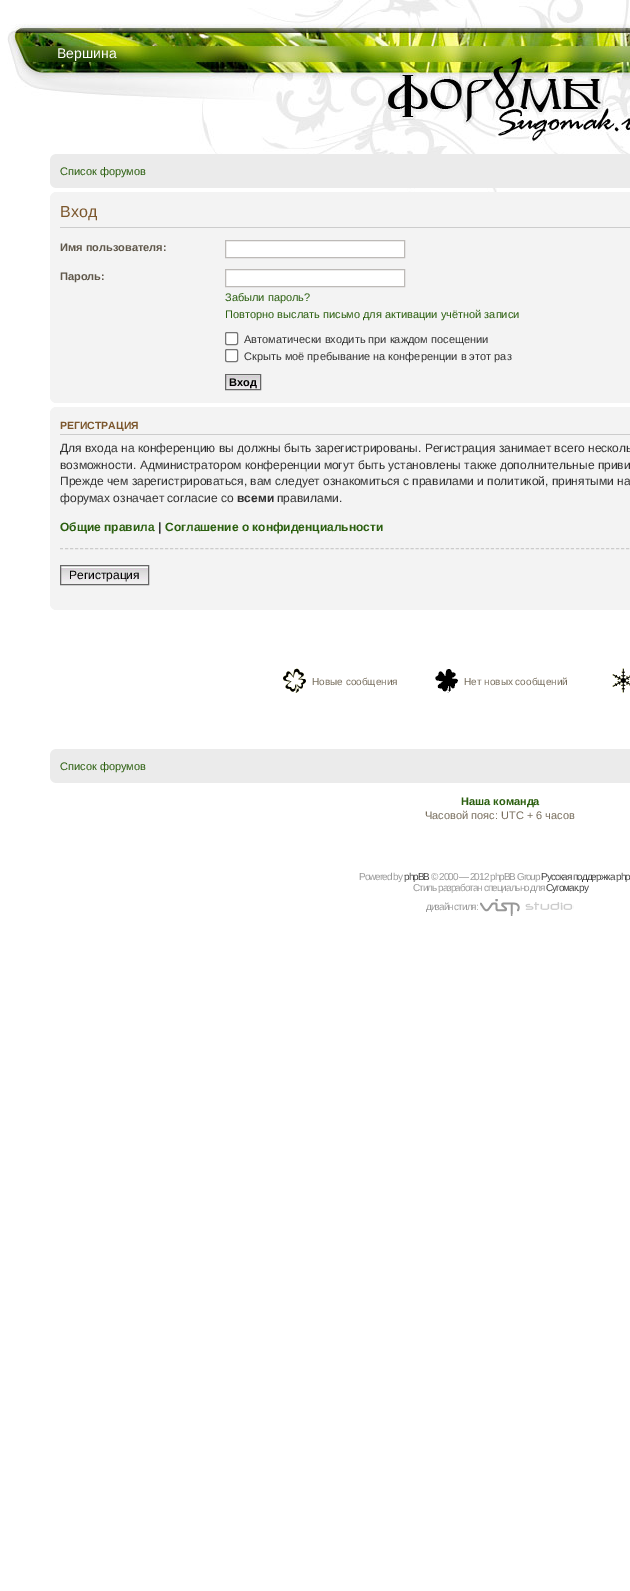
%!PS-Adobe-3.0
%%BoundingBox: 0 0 630 1591
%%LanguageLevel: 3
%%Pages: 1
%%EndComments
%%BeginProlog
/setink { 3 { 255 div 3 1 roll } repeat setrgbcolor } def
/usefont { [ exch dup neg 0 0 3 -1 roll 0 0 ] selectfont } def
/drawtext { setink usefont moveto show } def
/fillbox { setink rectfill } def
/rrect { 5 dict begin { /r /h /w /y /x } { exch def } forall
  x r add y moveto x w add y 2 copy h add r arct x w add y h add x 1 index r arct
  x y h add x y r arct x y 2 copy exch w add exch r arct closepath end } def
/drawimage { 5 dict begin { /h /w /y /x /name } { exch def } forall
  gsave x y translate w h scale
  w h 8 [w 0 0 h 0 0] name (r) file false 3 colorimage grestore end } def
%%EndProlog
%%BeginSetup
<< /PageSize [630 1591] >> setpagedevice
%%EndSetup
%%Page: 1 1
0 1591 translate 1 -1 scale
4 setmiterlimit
0 0 630 1591 255 255 255 fillbox
(assets/img1.rgb) 7 0 623 223 drawimage
(Вершина) 57 58 /LiberationSans-Regular 14 255 255 255 drawtext
50 154 580 34 235 235 235 fillbox
(assets/img2.rgb) 50 154 5 5 drawimage
(Список форумов) 60 175 /LiberationSans-Regular 11 43 95 15 drawtext
(assets/img3.rgb) 50 183 5 5 drawimage
50 192 580 211 243 243 243 fillbox
(assets/img4.rgb) 50 192 4 4 drawimage
60 227 570 1 204 204 204 fillbox
(Вход) 60 217 /LiberationSans-Regular 16 124 87 45 drawtext
(Имя пользователя:) 60 251 /LiberationSans-Bold 11 95 87 74 drawtext
255 255 255 setink
225.5 240.5 moveto 404.5 240.5 lineto 404.5 257.5 lineto 225.5 257.5 lineto closepath gsave fill grestore
189 186 183 setink
stroke
(Пароль:) 60 280 /LiberationSans-Bold 11 95 87 74 drawtext
255 255 255 setink
225.5 269.5 moveto 404.5 269.5 lineto 404.5 286.5 lineto 225.5 286.5 lineto closepath gsave fill grestore
189 186 183 setink
stroke
(Забыли пароль?) 225 301 /LiberationSans-Regular 11 43 95 15 drawtext
(Повторно выслать письмо для активации учётной записи) 225 318 /LiberationSans-Regular 11 43 95 15 drawtext
255 255 255 setink
225.5 332.5 12 12 1.5 rrect gsave fill grestore
118 118 118 setink
stroke
(Автоматически входить при каждом посещении) 244 343 /LiberationSans-Regular 11 51 51 51 drawtext
255 255 255 setink
225.5 349.5 12 12 1.5 rrect gsave fill grestore
118 118 118 setink
stroke
(Скрыть моё пребывание на конференции в этот раз) 244 360 /LiberationSans-Regular 11 51 51 51 drawtext
(assets/img5.rgb) 226 375 34 14 drawimage
102 102 102 setink
225.5 374.5 35 15 rectstroke
(Вход) 229 386 /LiberationSans-Bold 11 0 0 0 drawtext
(assets/img6.rgb) 50 399 4 4 drawimage
50 407 580 203 243 243 243 fillbox
(assets/img4.rgb) 50 407 4 4 drawimage
60 434 570 1 204 204 204 fillbox
(РЕГИСТРАЦИЯ) 60 429 /LiberationSans-Bold 10.5 124 87 45 drawtext
(Для входа на конференцию вы должны быть зарегистрированы. Регистрация занимает всего несколь) 60 452 /LiberationSans-Regular 12 51 51 51 drawtext
(возможности. Администратором конференции могут быть установлены также дополнительные приви) 60 469 /LiberationSans-Regular 12 51 51 51 drawtext
(Прежде чем зарегистрироваться, вам следует ознакомиться с правилами и политикой, принятыми на) 60 485 /LiberationSans-Regular 12 51 51 51 drawtext
(форумах означает согласие со) 60 502 /LiberationSans-Regular 12 51 51 51 drawtext
(всеми) 237 502 /LiberationSans-Bold 12 51 51 51 drawtext
(правилами.) 277 502 /LiberationSans-Regular 12 51 51 51 drawtext
(Общие правила) 60 531 /LiberationSans-Bold 12 43 95 15 drawtext
(|) 158 531 /LiberationSans-Bold 12 51 51 51 drawtext
(Соглашение о конфиденциальности) 165 531 /LiberationSans-Bold 12 43 95 15 drawtext
204 204 204 setink
[3 2.01] 0 setdash
60 548.5 moveto 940 548.5 lineto stroke
(assets/img7.rgb) 61 567 87 17 drawimage
61 566 87 1 250 250 250 fillbox
102 102 102 setink
[] 0 setdash
60.5 565.5 88 19 rectstroke
(Регистрация) 69 579 /LiberationSans-Regular 12 0 0 0 drawtext
(assets/img6.rgb) 50 606 4 4 drawimage
(assets/img8.rgb) 283 668 23 25 drawimage
(Новые сообщения) 312 685 /LiberationSans-Regular 10 120 110 93 drawtext
(assets/img9.rgb) 435 669 23 24 drawimage
(Нет новых сообщений) 464 685 /LiberationSans-Regular 10 120 110 93 drawtext
(assets/img10.rgb) 612 668 18 25 drawimage
50 749 580 34 235 235 235 fillbox
(assets/img2.rgb) 50 749 5 5 drawimage
(Список форумов) 60 770 /LiberationSans-Regular 11 43 95 15 drawtext
(assets/img3.rgb) 50 778 5 5 drawimage
(Наша команда) 461 805 /LiberationSans-Bold 11 43 95 15 drawtext
(Часовой пояс: UTC + 6 часов) 425 819 /LiberationSans-Regular 11 120 110 93 drawtext
/LiberationSans-Regular 10 usefont
153 153 153 setink
359 880 moveto -1 0 (Powered by) ashow
68 68 68 setink
404 880 moveto -1 0 (рhрBВ) ashow
153 153 153 setink
431 880 moveto -1 0 (© 2000 — 2012 рhрBВ Grоup) ashow
68 68 68 setink
541 880 moveto -1 0 (Русская поддержка php) ashow
153 153 153 setink
413 891 moveto -1 0 (Стиль разработан специально для) ashow
68 68 68 setink
546 891 moveto -1 0 (Сугомак.ру) ashow
153 153 153 setink
426 910 moveto -1 0 (дизайн стиля:) ashow
(assets/img11.rgb) 480 899 94 17 drawimage
showpage
%%EOF
